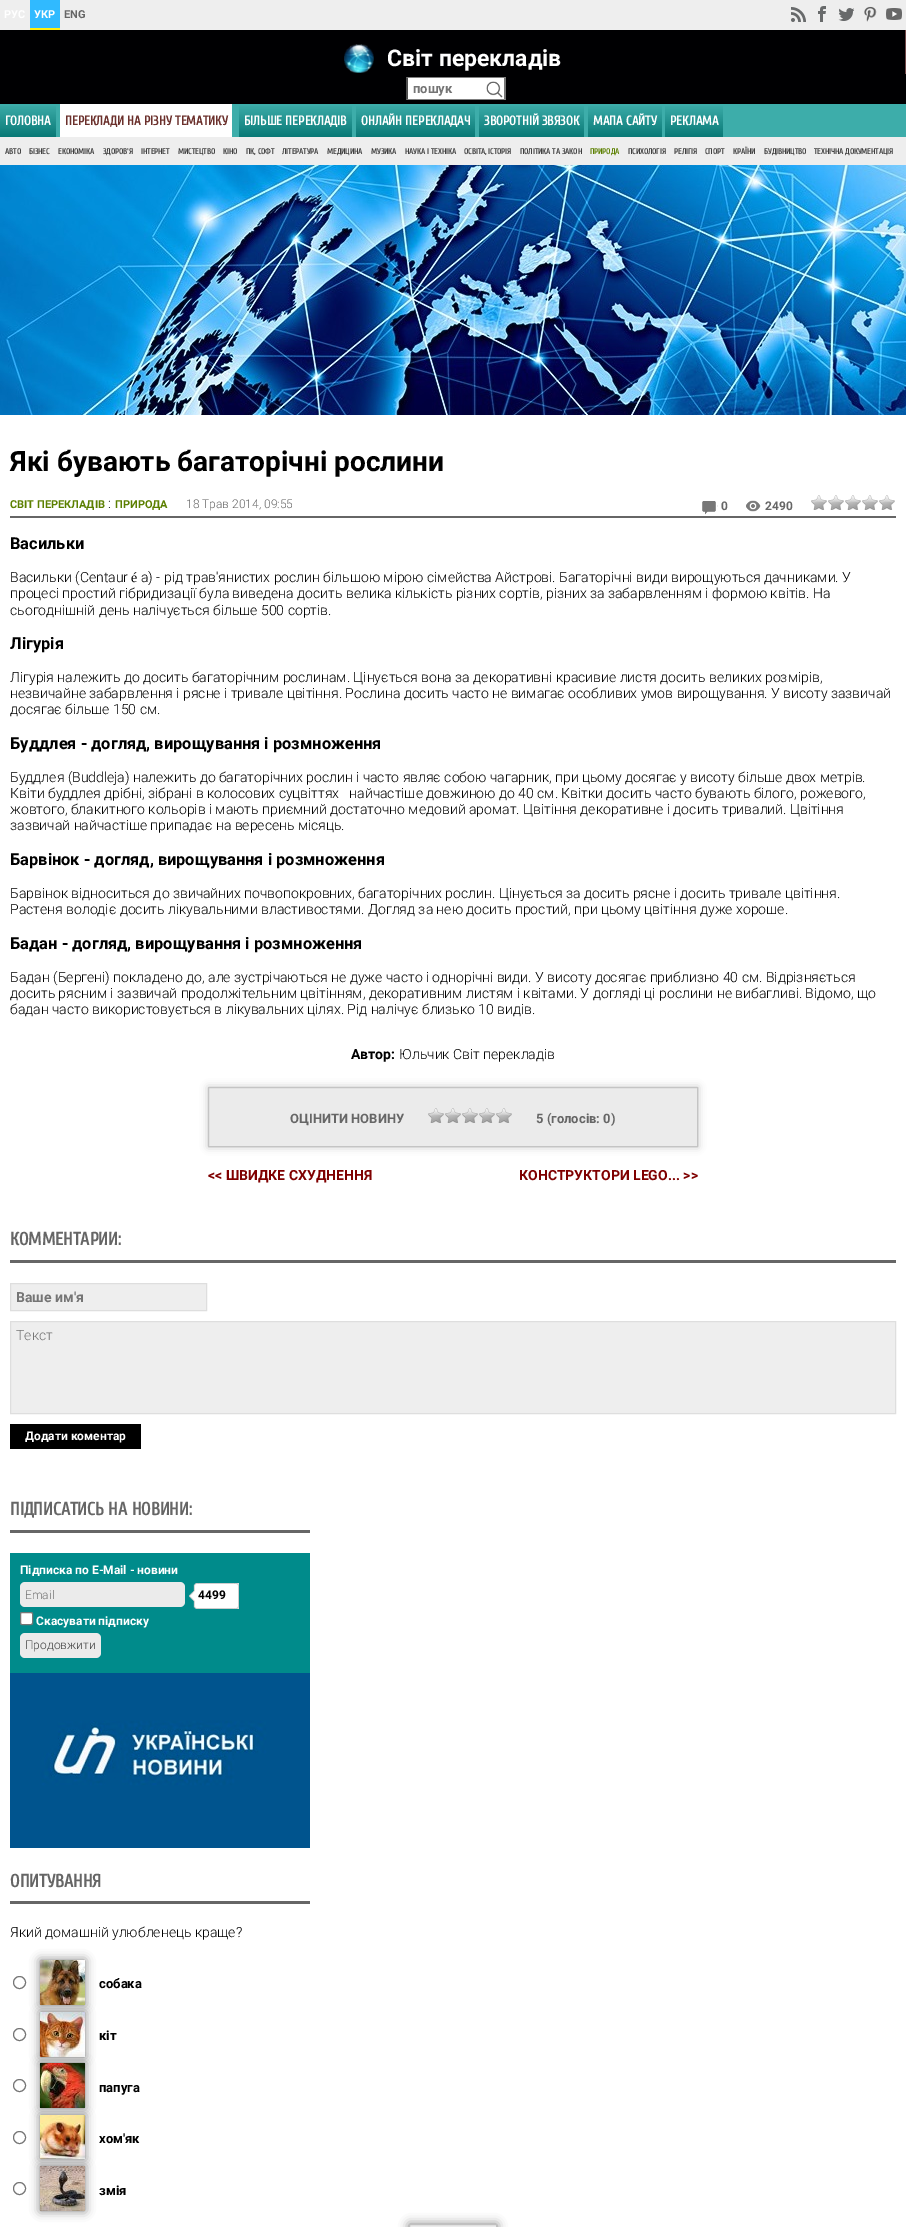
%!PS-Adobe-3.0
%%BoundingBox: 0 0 906 2227
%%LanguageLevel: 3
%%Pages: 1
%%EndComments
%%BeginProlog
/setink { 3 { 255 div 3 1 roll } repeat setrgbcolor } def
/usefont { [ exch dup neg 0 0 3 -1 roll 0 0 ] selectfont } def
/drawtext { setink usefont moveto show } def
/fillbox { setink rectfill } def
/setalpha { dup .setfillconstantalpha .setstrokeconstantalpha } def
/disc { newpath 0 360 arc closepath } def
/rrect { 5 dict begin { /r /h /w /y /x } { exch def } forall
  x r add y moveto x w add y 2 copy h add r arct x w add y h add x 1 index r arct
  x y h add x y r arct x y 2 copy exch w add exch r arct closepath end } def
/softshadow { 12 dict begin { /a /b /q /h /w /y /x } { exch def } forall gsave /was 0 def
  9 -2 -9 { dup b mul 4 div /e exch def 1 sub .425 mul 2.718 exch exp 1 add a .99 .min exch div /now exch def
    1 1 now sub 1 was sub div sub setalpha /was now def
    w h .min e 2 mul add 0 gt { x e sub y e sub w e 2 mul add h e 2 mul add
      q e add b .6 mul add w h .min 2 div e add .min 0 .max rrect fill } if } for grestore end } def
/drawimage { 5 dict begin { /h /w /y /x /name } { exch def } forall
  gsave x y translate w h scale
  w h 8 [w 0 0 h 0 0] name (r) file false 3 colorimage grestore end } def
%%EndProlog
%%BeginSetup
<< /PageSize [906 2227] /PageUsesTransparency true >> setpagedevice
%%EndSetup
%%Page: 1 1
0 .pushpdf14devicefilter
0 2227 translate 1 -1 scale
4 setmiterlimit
0 0 906 2227 61 173 170 fillbox
0 0 906 30 238 238 238 fillbox
(РУС) 4 18 /Roboto-Bold 11 255 255 255 drawtext
30 0 30 28 48 186 255 fillbox
30 28 30 2 255 239 14 fillbox
(УКР) 34 18 /Roboto-Bold 11 255 255 255 drawtext
(ENG) 64 18 /Roboto-Bold 11 102 102 102 drawtext
(assets/img1.rgb) 791 7 15 15 drawimage
(assets/img2.rgb) 818 6 8 16 drawimage
(assets/img3.rgb) 838 8 16 13 drawimage
(assets/img4.rgb) 864 6 13 16 drawimage
(assets/img5.rgb) 886 8 16 12 drawimage
0 30 906 74 0 0 2 fillbox
(assets/img6.rgb) 344 44 30 29 drawimage
(Світ перекладів) 387 66 /Roboto-Bold 23 255 255 255 drawtext
905 30 1 44 112 70 71 fillbox
406 77 100 23 255 255 255 fillbox
127 127 127 setink
406 77 moveto 506 77 lineto 504 78 lineto 408 78 lineto closepath fill
118 118 118 setink
506 77 moveto 506 100 lineto 504 99 lineto 504 78 lineto closepath fill
127 127 127 setink
506 100 moveto 406 100 lineto 408 99 lineto 504 99 lineto closepath fill
79 79 79 setink
406 100 moveto 406 77 lineto 408 78 lineto 408 99 lineto closepath fill
(пошук) 413 93 /Roboto-Bold 13 117 117 117 drawtext
(assets/img7.rgb) 486 81 17 17 drawimage
gsave 0 106 moveto 56 106 lineto 56 137 lineto 0 137 lineto closepath clip newpath
<< /ShadingType 2 /ColorSpace /DeviceRGB /Coords [28 104 28 137] /Extend [true true] /Function << /FunctionType 2 /Domain [0 1] /C0 [0.239 0.678 0.667] /C1 [0.035 0.475 0.463] /N 1 >> >> shfill grestore
(ГОЛОВНА) 5 125 /Cuprum-Bold 13 255 255 255 drawtext
60 104 172 33 255 255 255 fillbox
(ПЕРЕКЛАДИ НА РІЗНУ ТЕМАТИКУ) 65 125 /Cuprum-Bold 13 107 48 44 drawtext
gsave 239 106 moveto 352 106 lineto 352 137 lineto 239 137 lineto closepath clip newpath
<< /ShadingType 2 /ColorSpace /DeviceRGB /Coords [296 104 296 137] /Extend [true true] /Function << /FunctionType 2 /Domain [0 1] /C0 [0.239 0.678 0.667] /C1 [0.035 0.475 0.463] /N 1 >> >> shfill grestore
(БІЛЬШЕ ПЕРЕКЛАДІВ) 244 125 /Cuprum-Bold 13 255 255 255 drawtext
gsave 356 106 moveto 475 106 lineto 475 137 lineto 356 137 lineto closepath clip newpath
<< /ShadingType 2 /ColorSpace /DeviceRGB /Coords [416 104 416 137] /Extend [true true] /Function << /FunctionType 2 /Domain [0 1] /C0 [0.239 0.678 0.667] /C1 [0.035 0.475 0.463] /N 1 >> >> shfill grestore
(ОНЛАЙН ПЕРЕКЛАДАЧ) 361 125 /Cuprum-Bold 13 255 255 255 drawtext
gsave 479 106 moveto 584 106 lineto 584 137 lineto 479 137 lineto closepath clip newpath
<< /ShadingType 2 /ColorSpace /DeviceRGB /Coords [532 104 532 137] /Extend [true true] /Function << /FunctionType 2 /Domain [0 1] /C0 [0.239 0.678 0.667] /C1 [0.035 0.475 0.463] /N 1 >> >> shfill grestore
(ЗВОРОТНІЙ ЗВЯЗОК) 484 125 /Cuprum-Bold 13 255 255 255 drawtext
gsave 588 106 moveto 662 106 lineto 662 137 lineto 588 137 lineto closepath clip newpath
<< /ShadingType 2 /ColorSpace /DeviceRGB /Coords [625 104 625 137] /Extend [true true] /Function << /FunctionType 2 /Domain [0 1] /C0 [0.239 0.678 0.667] /C1 [0.035 0.475 0.463] /N 1 >> >> shfill grestore
(МАПА САЙТУ) 593 125 /Cuprum-Bold 13 255 255 255 drawtext
gsave 665 106 moveto 723 106 lineto 723 137 lineto 665 137 lineto closepath clip newpath
<< /ShadingType 2 /ColorSpace /DeviceRGB /Coords [694 104 694 137] /Extend [true true] /Function << /FunctionType 2 /Domain [0 1] /C0 [0.239 0.678 0.667] /C1 [0.035 0.475 0.463] /N 1 >> >> shfill grestore
(РЕКЛАМА) 670 125 /Cuprum-Bold 13 255 255 255 drawtext
0 137 906 28 238 238 238 fillbox
(АВТО) 5 154 /Cuprum-Bold 8 64 64 64 drawtext
(БІЗНЕС) 29 154 /Cuprum-Bold 8 64 64 64 drawtext
(ЕКОНОМІКА) 58 154 /Cuprum-Bold 8 64 64 64 drawtext
(ЗДОРОВ'Я) 103 154 /Cuprum-Bold 8 64 64 64 drawtext
(ІНТЕРНЕТ) 141 154 /Cuprum-Bold 8 64 64 64 drawtext
(МИСТЕЦТВО) 178 154 /Cuprum-Bold 8 64 64 64 drawtext
(КІНО) 223 154 /Cuprum-Bold 8 64 64 64 drawtext
(ПК, СОФТ) 246 154 /Cuprum-Bold 8 64 64 64 drawtext
(ЛІТЕРАТУРА) 282 154 /Cuprum-Bold 8 64 64 64 drawtext
(МЕДИЦИНА) 327 154 /Cuprum-Bold 8 64 64 64 drawtext
(МУЗИКА) 371 154 /Cuprum-Bold 8 64 64 64 drawtext
(НАУКА І ТЕХНІКА) 405 154 /Cuprum-Bold 8 64 64 64 drawtext
(ОСВІТА, ІСТОРІЯ) 464 154 /Cuprum-Bold 8 64 64 64 drawtext
(ПОЛІТИКА ТА ЗАКОН) 520 154 /Cuprum-Bold 8 64 64 64 drawtext
(ПРИРОДА) 590 154 /Cuprum-Bold 8 91 127 0 drawtext
(ПСИХОЛОГІЯ) 628 154 /Cuprum-Bold 8 64 64 64 drawtext
(РЕЛІГІЯ) 674 154 /Cuprum-Bold 8 64 64 64 drawtext
(СПОРТ) 705 154 /Cuprum-Bold 8 64 64 64 drawtext
(КРАЇНИ) 733 154 /Cuprum-Bold 8 64 64 64 drawtext
(БУДІВНИЦТВО) 764 154 /Cuprum-Bold 8 64 64 64 drawtext
(ТЕХНІЧНА ДОКУМЕНТАЦІЯ) 814 154 /Cuprum-Bold 8 64 64 64 drawtext
0 415 906 1812 255 255 255 fillbox
(assets/img8.rgb) 0 165 906 250 drawimage
(Які бувають багаторічні рослини) 10 471 /Roboto-Bold 28 0 0 0 drawtext
10 516 886 2 102 102 102 fillbox
(СВІТ ПЕРЕКЛАДІВ) 10 508 /Roboto-Bold 11 91 127 0 drawtext
(:) 108 508 /Roboto-Light 14 0 0 0 drawtext
(ПРИРОДА) 115 508 /Roboto-Bold 11 91 127 0 drawtext
(18 Трав 2014, 09:55) 186 508 /Roboto-Light 12 102 102 102 drawtext
(assets/img9.rgb) 702 501 16 14 drawimage
(0) 721 510 /Roboto-Bold 12 102 102 102 drawtext
(assets/img10.rgb) 746 500 15 12 drawimage
(2490) 765 510 /Roboto-Bold 12 102 102 102 drawtext
(assets/img11.rgb) 811 495 16 15 drawimage
(assets/img11.rgb) 828 495 16 15 drawimage
(assets/img11.rgb) 845 495 16 15 drawimage
(assets/img11.rgb) 862 495 16 15 drawimage
(assets/img11.rgb) 879 495 16 15 drawimage
(Васильки) 10 549 /Roboto-Bold 16.4 0 0 0 drawtext
(Васильки \(Centaur) 10 582 /Roboto-Light 14 0 0 0 drawtext
(é) 131 582 /LiberationSerif-Regular 14 0 0 0 drawtext
(a\) - рід трав'янистих рослин більшою мірою сімейства Айстрові. Багаторічні види вирощуються дачниками. У) 141 582 /Roboto-Light 14 0 0 0 drawtext
(процесі простий гібридизації була виведена досить велика кількість різних сортів, різних за забарвленням і формою квітів. На) 10 598 /Roboto-Light 14 0 0 0 drawtext
(сьогоднішній день налічується більше 500 сортів.) 10 615 /Roboto-Light 14 0 0 0 drawtext
(Лігурія) 10 649 /Roboto-Bold 16.4 0 0 0 drawtext
(Лігурія належить до досить багаторічним рослинам. Цінується вона за декоративні красивие листя досить великих розмірів,) 10 682 /Roboto-Light 14 0 0 0 drawtext
(незвичайне забарвлення і рясне і тривале цвітіння. Рослина досить часто не вимагає особливих умов вирощування. У висоту зазвичай) 10 698 /Roboto-Light 14 0 0 0 drawtext
(досягає більше 150 см.) 10 714 /Roboto-Light 14 0 0 0 drawtext
(Буддлея - догляд, вирощування і розмноження) 10 749 /Roboto-Bold 16.4 0 0 0 drawtext
(Буддлея \(Buddleja\) належить до багаторічних рослин і часто являє собою чагарник, при цьому досягає у висоту більше двох метрів.) 10 782 /Roboto-Light 14 0 0 0 drawtext
(Квіти буддлея дрібні, зібрані в колосових суцвіттях   найчастіше довжиною до 40 см. Квітки досить часто бувають білого, рожевого,) 10 798 /Roboto-Light 14 0 0 0 drawtext
(жовтого, блакитного кольорів і мають приємний достаточно медовий аромат. Цвітіння декоративне і досить тривалий. Цвітіння) 10 814 /Roboto-Light 14 0 0 0 drawtext
(зазвичай найчастіше припадає на вересень місяць.) 10 830 /Roboto-Light 14 0 0 0 drawtext
(Барвінок - догляд, вирощування і розмноження) 10 865 /Roboto-Bold 16.4 0 0 0 drawtext
(Барвінок відноситься до звичайних почвопокровних, багаторічних рослин. Цінується за досить рясне і досить тривале цвітіння.) 10 898 /Roboto-Light 14 0 0 0 drawtext
(Растеня володіє досить лікувальними властивостями. Догляд за нею досить простий, при цьому цвітіння дуже хороше.) 10 914 /Roboto-Light 14 0 0 0 drawtext
(Бадан - догляд, вирощування і розмноження) 10 949 /Roboto-Bold 16.4 0 0 0 drawtext
(Бадан \(Бергені\) покладено до, але зустрічаються не дуже часто і однорічні види. У висоту досягає приблизно 40 см. Відрізняється) 10 982 /Roboto-Light 14 0 0 0 drawtext
(досить рясним і зазвичай продолжітельним цвітінням, декоративним листям і квітами. У догляді ці рослини не вибагливі. Відомо, що) 10 998 /Roboto-Light 14 0 0 0 drawtext
(бадан часто використовується в лікувальних цілях. Рід налічує близько 10 видів.) 10 1014 /Roboto-Light 14 0 0 0 drawtext
(Автор:) 351 1059 /Roboto-Bold 14 0 0 0 drawtext
(Юльчик Світ перекладів) 399 1059 /Roboto-Light 14 0 0 0 drawtext
196 196 196 setink
208 1087 490 60 0 4 1 softshadow
235 235 235 setink
208.5 1087.5 moveto 697.5 1087.5 lineto 697.5 1146.5 lineto 208.5 1146.5 lineto closepath gsave fill grestore
196 196 196 setink
stroke
(ОЦІНИТИ НОВИНУ) 290 1123 /Roboto-Bold 13 102 102 102 drawtext
(assets/img12.rgb) 428 1108 16 15 drawimage
(assets/img12.rgb) 445 1108 16 15 drawimage
(assets/img12.rgb) 462 1108 16 15 drawimage
(assets/img12.rgb) 479 1108 16 15 drawimage
(assets/img12.rgb) 496 1108 16 15 drawimage
(5 \(голосів: 0\)) 536 1123 /Roboto-Bold 13 102 102 102 drawtext
(<< ШВИДКЕ СХУДНЕННЯ) 208 1180 /Roboto-Bold 14 127 0 0 drawtext
(КОНСТРУКТОРИ LEGO... >>) 519 1180 /Roboto-Bold 14 127 0 0 drawtext
10 1260 886 3 102 102 102 fillbox
(КОММЕНТАРИИ:) 10 1245 /Cuprum-Bold 18 102 102 102 drawtext
238 238 238 setink
10.5 1283.5 moveto 206.5 1283.5 lineto 206.5 1310.5 lineto 10.5 1310.5 lineto closepath gsave fill grestore
222 222 222 setink
stroke
(Ваше им'я) 16 1302 /Roboto-Bold 14 117 117 117 drawtext
238 238 238 setink
10.5 1321.5 moveto 895.5 1321.5 lineto 895.5 1413.5 lineto 10.5 1413.5 lineto closepath gsave fill grestore
222 222 222 setink
stroke
(Текст) 16 1340 /Roboto-Light 14 117 117 117 drawtext
10 1424 131 25 0 0 0 fillbox
(Додати коментар) 25 1440 /Roboto-Bold 12 255 255 255 drawtext
10 1530 300 3 102 102 102 fillbox
(ПІДПИСАТИСЬ НА НОВИНИ:) 10 1515 /Cuprum-Bold 18 102 102 102 drawtext
10 1553 300 120 0 139 139 fillbox
(Підписка по E-Mail - новини) 20 1574 /Roboto-Bold 12 255 255 255 drawtext
235 235 235 setink
20 1582 165 25 5 rrect fill
(Email) 25 1599 /Roboto-Light 12 117 117 117 drawtext
(assets/img13.rgb) 189 1583 50 26 drawimage
(4499) 198 1599 /Roboto-Bold 12 0 0 0 drawtext
255 255 255 setink
20.5 1612.5 12 12 1.5 rrect gsave fill grestore
118 118 118 setink
stroke
(Скасувати підписку) 36 1625 /Roboto-Bold 12 255 255 255 drawtext
235 235 235 setink
20 1633 81 25 5 rrect fill
(Продовжити) 25 1649 /Roboto-Light 12 64 64 64 drawtext
(assets/img14.rgb) 10 1673 300 175 drawimage
10 1901 300 3 102 102 102 fillbox
(ОПИТУВАННЯ) 10 1887 /Cuprum-Bold 18 102 102 102 drawtext
(Який домашній улюбленець краще?) 10 1937 /Roboto-Light 14 0 0 0 drawtext
118 118 118 setink
19.5 1982.5 6 disc stroke
0 0 0 setink
40 1960 45 45 0 5 0.5 softshadow
(assets/img15.rgb) 40 1960 45 45 drawimage
(собака) 99 1988 /Roboto-Bold 13 0 0 0 drawtext
118 118 118 setink
19.5 2034.5 6 disc stroke
0 0 0 setink
40 2012 45 45 0 5 0.5 softshadow
(assets/img16.rgb) 40 2012 45 45 drawimage
(кіт) 99 2040 /Roboto-Bold 13 0 0 0 drawtext
118 118 118 setink
19.5 2085.5 6 disc stroke
0 0 0 setink
40 2063 45 45 0 5 0.5 softshadow
(assets/img17.rgb) 40 2063 45 45 drawimage
(папуга) 99 2092 /Roboto-Bold 13 0 0 0 drawtext
118 118 118 setink
19.5 2137.5 6 disc stroke
0 0 0 setink
40 2115 45 44 0 5 0.5 softshadow
(assets/img18.rgb) 40 2115 45 44 drawimage
(хом'як) 99 2143 /Roboto-Bold 13 0 0 0 drawtext
118 118 118 setink
19.5 2188.5 6 disc stroke
0 0 0 setink
40 2166 45 45 0 5 0.5 softshadow
(assets/img19.rgb) 40 2166 45 45 drawimage
(змія) 99 2195 /Roboto-Bold 13 0 0 0 drawtext
409 2224 88 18 0 5 0.5 softshadow
235 235 235 setink
409.5 2224.5 moveto 496.5 2224.5 lineto 496.5 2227.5 lineto 409.5 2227.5 lineto closepath gsave fill grestore
192 192 192 setink
stroke
.poppdf14devicefilter showpage
%%EOF
